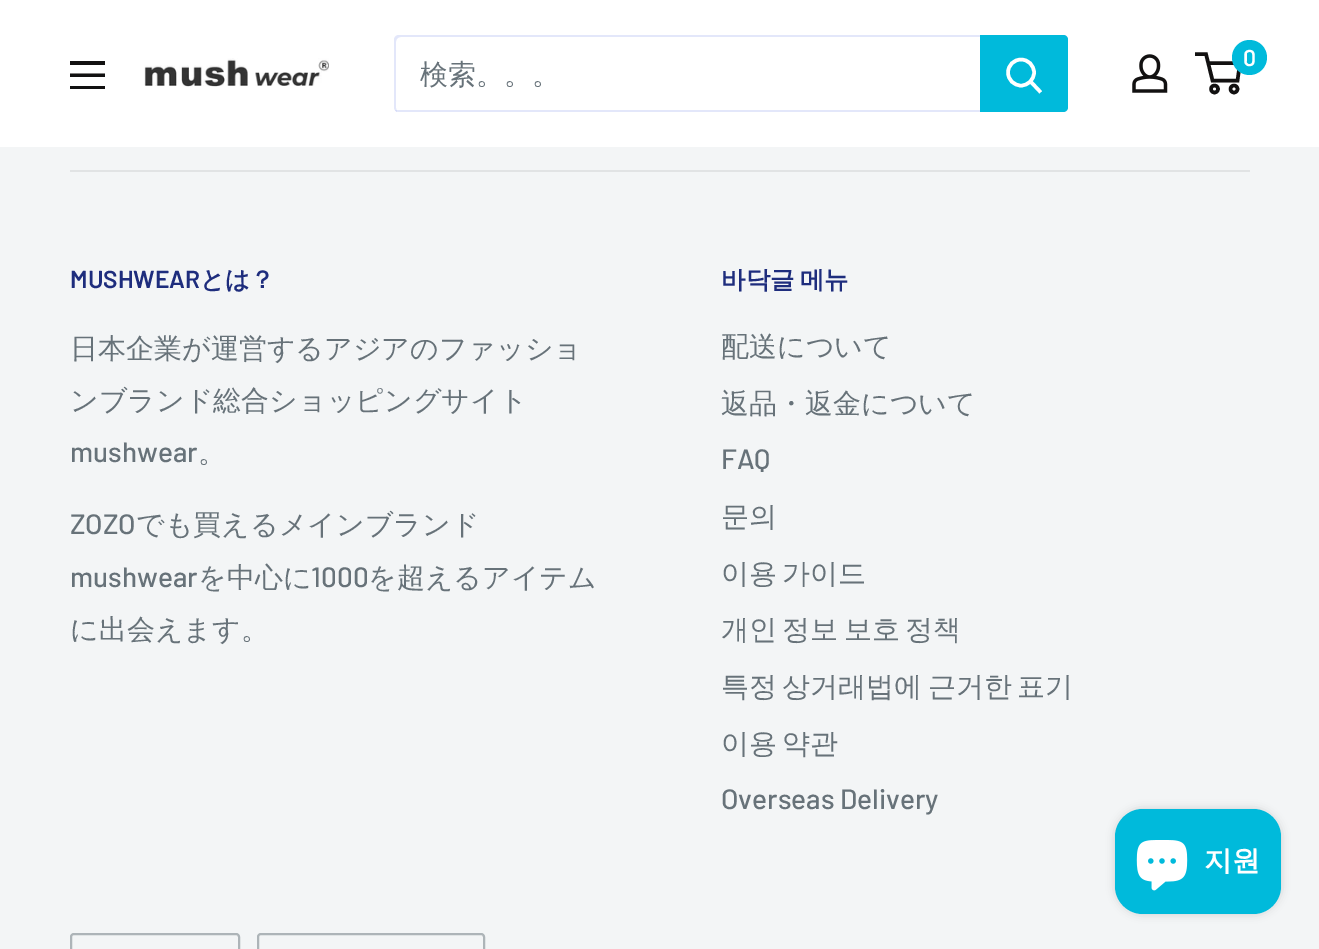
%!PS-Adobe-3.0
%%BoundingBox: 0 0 1319 949
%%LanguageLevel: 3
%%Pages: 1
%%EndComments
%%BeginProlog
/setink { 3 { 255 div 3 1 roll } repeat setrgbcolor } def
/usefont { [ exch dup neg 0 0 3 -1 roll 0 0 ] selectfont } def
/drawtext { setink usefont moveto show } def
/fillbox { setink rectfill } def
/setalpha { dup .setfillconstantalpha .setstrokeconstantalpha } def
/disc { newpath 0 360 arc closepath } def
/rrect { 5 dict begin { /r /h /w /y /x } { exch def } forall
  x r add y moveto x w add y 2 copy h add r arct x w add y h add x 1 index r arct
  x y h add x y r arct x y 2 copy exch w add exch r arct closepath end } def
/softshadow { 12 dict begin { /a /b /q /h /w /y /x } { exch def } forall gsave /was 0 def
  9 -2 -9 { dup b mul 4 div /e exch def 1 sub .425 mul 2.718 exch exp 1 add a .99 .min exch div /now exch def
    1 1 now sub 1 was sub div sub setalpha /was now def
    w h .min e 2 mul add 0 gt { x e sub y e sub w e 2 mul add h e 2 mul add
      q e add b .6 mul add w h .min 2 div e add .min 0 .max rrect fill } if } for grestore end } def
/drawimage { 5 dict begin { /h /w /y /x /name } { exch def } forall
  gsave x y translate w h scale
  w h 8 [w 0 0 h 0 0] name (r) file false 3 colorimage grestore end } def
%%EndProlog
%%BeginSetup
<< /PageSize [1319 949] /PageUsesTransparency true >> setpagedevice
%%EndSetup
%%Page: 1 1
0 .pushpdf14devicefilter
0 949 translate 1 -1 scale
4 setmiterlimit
0 0 1319 949 243 245 246 fillbox
0 0 1319 147 255 255 255 fillbox
18 17 17 setink
70 86 moveto 105 86 lineto 105 89 lineto 70 89 lineto closepath 70 61 moveto 105 61 lineto 105 65 lineto 70 65 lineto closepath 70 73.5 moveto 105 73.5 lineto 105 77 lineto 70 77 lineto closepath eofill
(assets/img1.rgb) 144 58 185 29 drawimage
227 231 250 setink
395 110 moveto 396 111 397 112 399 112 curveto 1063 112 lineto 1066 112 1068 110 1068 107 curveto 1068 40 lineto 1068 38 1067 36 1065 35 curveto 1065 36 1066 37 1066 38 curveto 1066 105 lineto 1066 108 1063 110 1060 110 curveto 397 110 lineto closepath fill
0.3 setalpha
163 175 239 setink
401 37 moveto 1064 37 lineto 1066 37 1067 38 1068 39 curveto 1067 36 1065 35 1063 35 curveto 399 35 lineto 396 35 394 37 394 40 curveto 394 107 lineto 394 109 395 111 397 112 curveto 396 108 lineto 396 42 lineto 396 39 398 37 401 37 curveto closepath fill
1 setalpha
(検索。。。) 420 84 /WenQuanYiZenHei-Medium 28 103 114 121 drawtext
0 186 219 setink
980 35 moveto 1063 35 lineto 1066 35 1068 37 1068 40 curveto 1068 107 lineto 1068 110 1066 112 1063 112 curveto 980 112 lineto closepath fill
255 255 255 setink
3.5 setlinewidth
2 setlinecap
1039.5 91 moveto 1031 82 lineto stroke
0 setlinecap
1021 72.5 13 disc stroke
(assets/img2.rgb) 1132 54 36 39 drawimage
18 17 17 setink
1214.5 89 3.5 disc stroke
1234 89 3.5 disc stroke
1208 63 moveto 1240 63 lineto 1237.5 80.5 lineto 1212.5 80.5 lineto 1206 54 lineto 1195 54 lineto stroke
0 186 219 setink
1249.5 57.5 17.5 disc fill
(0) 1243 66 /Barlow-SemiBold 23 255 255 255 drawtext
70 170 1180 2 225 227 228 fillbox
(MUSHWEAR) 70 288 /Barlow-SemiBold 24.5 30 45 125 drawtext
(とは？) 200 288 /WenQuanYiZenHei-Bold 24.5 30 45 125 drawtext
(日本企業が運営するアジアのファッショ) 70 358 /WenQuanYiZenHei-Medium 28 103 114 121 drawtext
(ンブランド総合ショッピングサイト) 70 410 /WenQuanYiZenHei-Medium 28 103 114 121 drawtext
(mushwear) 70 462 /Barlow-Medium 28 103 114 121 drawtext
(。) 198 462 /WenQuanYiZenHei-Medium 28 103 114 121 drawtext
(ZOZO) 70 534 /Barlow-Medium 28 103 114 121 drawtext
(でも買えるメインブランド) 136 534 /WenQuanYiZenHei-Medium 28 103 114 121 drawtext
(mushwear) 70 587 /Barlow-Medium 28 103 114 121 drawtext
(を中心に) 198 587 /WenQuanYiZenHei-Medium 28 103 114 121 drawtext
(1000) 311 587 /Barlow-Medium 28 103 114 121 drawtext
(を超えるアイテム) 368 587 /WenQuanYiZenHei-Medium 28 103 114 121 drawtext
(に出会えます。) 70 639 /WenQuanYiZenHei-Medium 28 103 114 121 drawtext
/WenQuanYiZenHei-Bold 24.5 usefont
30 45 125 setink
721 288 moveto -2 0 32 (바닥글 메뉴) widthshow
(配送について) 721 356 /WenQuanYiZenHei-Medium 28 103 114 121 drawtext
(返品・返金について) 721 413 /WenQuanYiZenHei-Medium 28 103 114 121 drawtext
(FAQ) 721 469 /Barlow-Medium 28 103 114 121 drawtext
(문의) 721 526 /WenQuanYiZenHei-Medium 28 103 114 121 drawtext
721 583 moveto -3 0 32 (이용 가이드) widthshow
721 639 moveto -3 0 32 (개인 정보 보호 정책) widthshow
721 696 moveto -3 0 32 (특정 상거래법에 근거한 표기) widthshow
721 753 moveto -3 0 32 (이용 약관) widthshow
(Overseas Delivery) 721 809 /Barlow-Medium 28 103 114 121 drawtext
173 180 184 setink
2 setlinewidth
71 934 168 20 3 rrect stroke
258 934 226 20 3 rrect stroke
0 0 0 setink
1115 809 166 105 28 4.5 0.15 softshadow
0 186 219 setink
1115 809 166 105 28 rrect fill
(assets/img3.rgb) 1136 840 52 51 drawimage
(지원) 1204 870 /WenQuanYiZenHei-Bold 28 255 255 255 drawtext
.poppdf14devicefilter showpage
%%EOF
